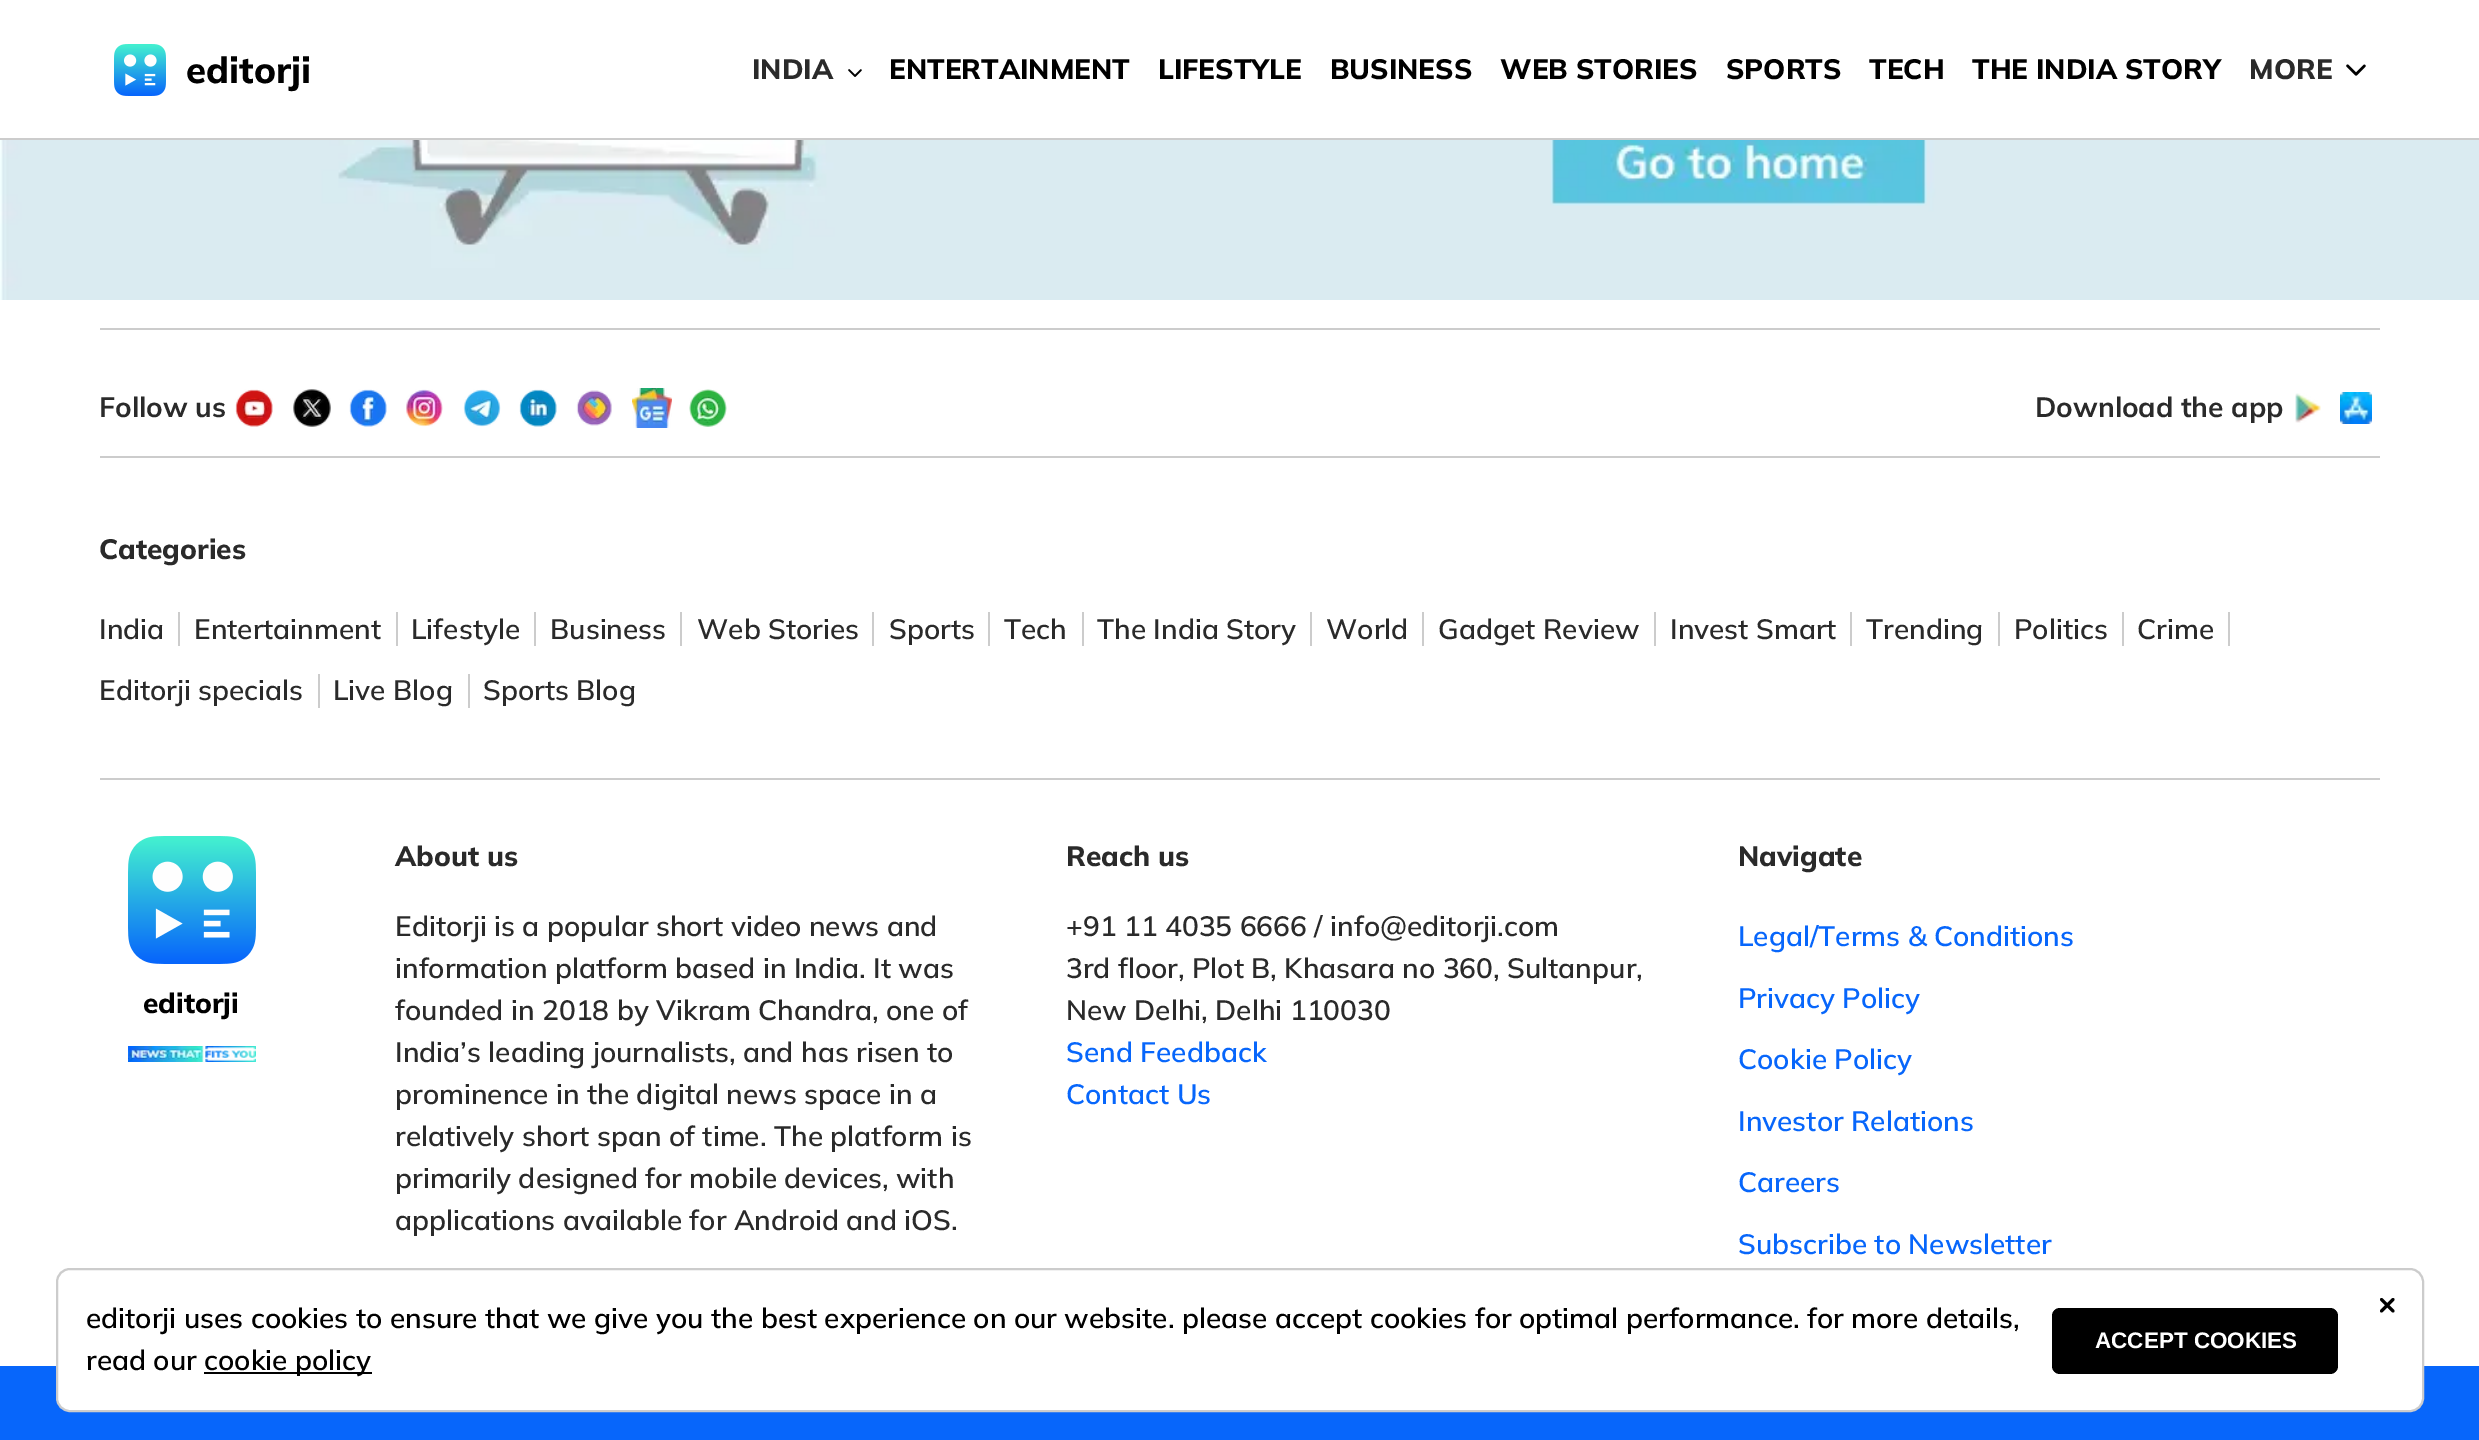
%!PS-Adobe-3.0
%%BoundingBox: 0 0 2479 1440
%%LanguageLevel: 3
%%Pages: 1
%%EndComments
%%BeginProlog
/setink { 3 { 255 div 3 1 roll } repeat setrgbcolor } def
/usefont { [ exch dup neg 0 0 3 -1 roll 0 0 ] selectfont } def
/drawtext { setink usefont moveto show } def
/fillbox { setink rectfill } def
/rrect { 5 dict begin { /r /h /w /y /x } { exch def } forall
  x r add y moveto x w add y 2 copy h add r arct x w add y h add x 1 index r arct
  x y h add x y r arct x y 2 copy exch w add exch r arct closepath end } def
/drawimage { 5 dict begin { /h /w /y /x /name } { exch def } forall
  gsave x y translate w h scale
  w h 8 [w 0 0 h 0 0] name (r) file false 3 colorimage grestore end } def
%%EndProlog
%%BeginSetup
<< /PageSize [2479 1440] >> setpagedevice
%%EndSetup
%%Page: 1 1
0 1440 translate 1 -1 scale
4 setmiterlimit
0 0 2479 1440 255 255 255 fillbox
0 138 2479 2 204 204 204 fillbox
(assets/img1.rgb) 114 44 52 52 drawimage
(editorji) 186 83 /Mulish-ExtraBold 36.5 0 0 0 drawtext
(INDIA) 752 79 /Mulish-ExtraBold 28 42 42 42 drawtext
(assets/img2.rgb) 848 69 14 8 drawimage
(ENTERTAINMENT) 889 79 /Mulish-ExtraBold 28 0 0 0 drawtext
(LIFESTYLE) 1158 79 /Mulish-ExtraBold 28 0 0 0 drawtext
(BUSINESS) 1330 79 /Mulish-ExtraBold 28 0 0 0 drawtext
(WEB STORIES) 1500 79 /Mulish-ExtraBold 28 0 0 0 drawtext
(SPORTS) 1726 79 /Mulish-ExtraBold 28 0 0 0 drawtext
(TECH) 1869 79 /Mulish-ExtraBold 28 0 0 0 drawtext
(THE INDIA STORY) 1972 79 /Mulish-ExtraBold 28 0 0 0 drawtext
(MORE) 2249 79 /Mulish-ExtraBold 28 42 42 42 drawtext
(assets/img3.rgb) 2346 64 20 12 drawimage
(assets/img4.rgb) 0 140 2479 160 drawimage
100 328 2280 2 204 204 204 fillbox
(Follow us) 99 417 /Mulish-Bold 28 42 42 42 drawtext
(assets/img5.rgb) 235 389 38 38 drawimage
(assets/img6.rgb) 293 389 38 38 drawimage
(assets/img7.rgb) 349 389 38 38 drawimage
(assets/img8.rgb) 406 389 37 38 drawimage
(assets/img9.rgb) 463 389 38 38 drawimage
(assets/img10.rgb) 519 389 38 38 drawimage
(assets/img11.rgb) 576 390 36 36 drawimage
(assets/img12.rgb) 632 388 40 40 drawimage
(assets/img13.rgb) 689 389 38 38 drawimage
(Download the app) 2035 417 /Mulish-Bold 28 42 42 42 drawtext
(assets/img14.rgb) 2295 393 26 30 drawimage
(assets/img15.rgb) 2340 392 32 32 drawimage
100 456 2280 2 204 204 204 fillbox
(Categories) 99 559 /Mulish-ExtraBold 28 42 42 42 drawtext
178 612 2 34 204 204 204 fillbox
(India) 99 639 /Mulish-SemiBold 28 42 42 42 drawtext
396 612 2 34 204 204 204 fillbox
(Entertainment) 194 639 /Mulish-SemiBold 28 42 42 42 drawtext
534 612 2 34 204 204 204 fillbox
(Lifestyle) 411 639 /Mulish-SemiBold 28 42 42 42 drawtext
680 612 2 34 204 204 204 fillbox
(Business) 550 639 /Mulish-SemiBold 28 42 42 42 drawtext
872 612 2 34 204 204 204 fillbox
(Web Stories) 697 639 /Mulish-SemiBold 28 42 42 42 drawtext
988 612 2 34 204 204 204 fillbox
(Sports) 889 639 /Mulish-SemiBold 28 42 42 42 drawtext
1082 612 2 34 204 204 204 fillbox
(Tech) 1004 639 /Mulish-SemiBold 28 42 42 42 drawtext
1310 612 2 34 204 204 204 fillbox
(The India Story) 1097 639 /Mulish-SemiBold 28 42 42 42 drawtext
1422 612 2 34 204 204 204 fillbox
(World) 1326 639 /Mulish-SemiBold 28 42 42 42 drawtext
1654 612 2 34 204 204 204 fillbox
(Gadget Review) 1438 639 /Mulish-SemiBold 28 42 42 42 drawtext
1850 612 2 34 204 204 204 fillbox
(Invest Smart) 1670 639 /Mulish-SemiBold 28 42 42 42 drawtext
1998 612 2 34 204 204 204 fillbox
(Trending) 1866 639 /Mulish-SemiBold 28 42 42 42 drawtext
2122 612 2 34 204 204 204 fillbox
(Politics) 2014 639 /Mulish-SemiBold 28 42 42 42 drawtext
2228 612 2 34 204 204 204 fillbox
(Crime) 2137 639 /Mulish-SemiBold 28 42 42 42 drawtext
318 674 2 34 204 204 204 fillbox
(Editorji specials) 99 700 /Mulish-SemiBold 28 42 42 42 drawtext
468 674 2 34 204 204 204 fillbox
(Live Blog) 333 700 /Mulish-SemiBold 28 42 42 42 drawtext
(Sports Blog) 483 700 /Mulish-SemiBold 28 42 42 42 drawtext
100 778 2280 2 204 204 204 fillbox
(assets/img16.rgb) 128 836 128 128 drawimage
(editorji) 143 1013 /Mulish-ExtraBold 28 0 0 0 drawtext
(assets/img17.rgb) 128 1046 128 16 drawimage
(About us) 395 866 /Mulish-ExtraBold 28 42 42 42 drawtext
(Editorji is a popular short video news and) 395 936 /Mulish-SemiBold 28 42 42 42 drawtext
(information platform based in India. It was) 395 978 /Mulish-SemiBold 28 42 42 42 drawtext
(founded in 2018 by Vikram Chandra, one of) 395 1020 /Mulish-SemiBold 28 42 42 42 drawtext
(India’s leading journalists, and has risen to) 395 1062 /Mulish-SemiBold 28 42 42 42 drawtext
(prominence in the digital news space in a) 395 1104 /Mulish-SemiBold 28 42 42 42 drawtext
(relatively short span of time. The platform is) 395 1146 /Mulish-SemiBold 28 42 42 42 drawtext
(primarily designed for mobile devices, with) 395 1188 /Mulish-SemiBold 28 42 42 42 drawtext
(applications available for Android and iOS.) 395 1230 /Mulish-SemiBold 28 42 42 42 drawtext
(Reach us) 1066 866 /Mulish-ExtraBold 28 42 42 42 drawtext
(+91 11 4035 6666 / info@editorji.com) 1066 936 /Mulish-SemiBold 28 42 42 42 drawtext
(3rd floor, Plot B, Khasara no 360, Sultanpur,) 1066 978 /Mulish-SemiBold 28 42 42 42 drawtext
(New Delhi, Delhi 110030) 1066 1020 /Mulish-SemiBold 28 42 42 42 drawtext
(Send Feedback) 1066 1062 /Mulish-SemiBold 28 7 102 251 drawtext
(Contact Us) 1066 1104 /Mulish-SemiBold 28 7 102 251 drawtext
(Navigate) 1738 866 /Mulish-ExtraBold 28 42 42 42 drawtext
(Legal/Terms & Conditions) 1738 946 /Mulish-SemiBold 28 7 102 251 drawtext
(Privacy Policy) 1738 1008 /Mulish-SemiBold 28 7 102 251 drawtext
(Cookie Policy) 1738 1069 /Mulish-SemiBold 28 7 102 251 drawtext
(Investor Relations) 1738 1131 /Mulish-SemiBold 28 7 102 251 drawtext
(Careers) 1738 1192 /Mulish-SemiBold 28 7 102 251 drawtext
(Subscribe to Newsletter) 1738 1254 /Mulish-SemiBold 28 7 102 251 drawtext
0 1366 2479 74 7 102 251 fillbox
255 255 255 setink
57 1269 2366 142 13 rrect gsave fill grestore
204 204 204 setink
2 setlinewidth
stroke
0 0 0 setink
2.9 setlinewidth
1 setlinecap
1 setlinejoin
2393 1311 moveto 2381.5 1299.5 lineto 2393 1299.5 moveto 2381.5 1311 lineto stroke
(editorji uses cookies to ensure that we give you the best experience on our website. please accept cookies for optimal performance. for more details,) 86 1328 /Mulish-SemiBold 28 0 0 0 drawtext
(read our) 86 1370 /Mulish-SemiBold 28 0 0 0 drawtext
204 1372 168 2 0 0 0 fillbox
(cookie policy) 204 1370 /Mulish-SemiBold 28 0 0 0 drawtext
2052 1308 286 66 8 rrect fill
(ACCEPT COOKIES) 2095 1348 /LiberationSans-Bold 22.5 255 255 255 drawtext
showpage
%%EOF
